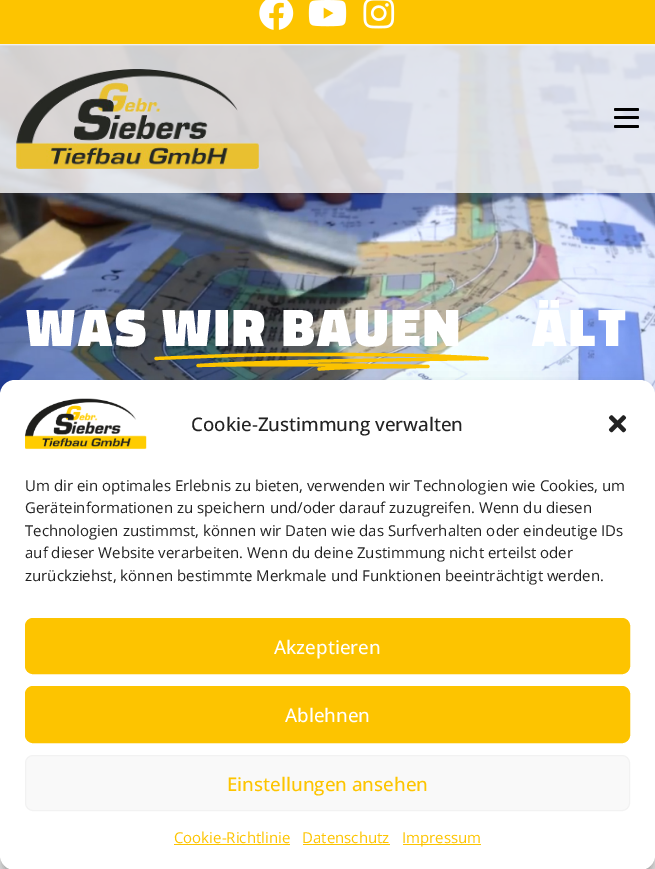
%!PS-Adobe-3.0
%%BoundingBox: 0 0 655 869
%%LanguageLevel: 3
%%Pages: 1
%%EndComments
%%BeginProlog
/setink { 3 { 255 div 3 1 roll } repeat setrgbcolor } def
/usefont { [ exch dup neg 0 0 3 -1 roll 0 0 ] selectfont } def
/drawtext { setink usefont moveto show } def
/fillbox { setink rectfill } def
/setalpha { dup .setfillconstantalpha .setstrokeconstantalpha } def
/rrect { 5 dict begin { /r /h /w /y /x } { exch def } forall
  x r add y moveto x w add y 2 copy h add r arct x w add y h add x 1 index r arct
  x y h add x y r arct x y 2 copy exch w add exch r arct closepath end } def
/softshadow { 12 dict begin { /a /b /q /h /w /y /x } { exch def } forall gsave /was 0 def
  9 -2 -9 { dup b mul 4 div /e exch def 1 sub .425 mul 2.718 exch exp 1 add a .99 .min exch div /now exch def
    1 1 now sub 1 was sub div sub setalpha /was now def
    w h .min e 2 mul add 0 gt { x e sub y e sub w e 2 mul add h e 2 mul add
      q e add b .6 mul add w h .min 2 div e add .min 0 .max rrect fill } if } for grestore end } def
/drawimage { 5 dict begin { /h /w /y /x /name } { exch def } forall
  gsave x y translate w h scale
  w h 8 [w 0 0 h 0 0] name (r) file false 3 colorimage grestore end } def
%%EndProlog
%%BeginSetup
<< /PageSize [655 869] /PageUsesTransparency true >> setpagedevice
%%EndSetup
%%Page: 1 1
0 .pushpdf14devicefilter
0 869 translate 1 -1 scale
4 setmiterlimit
0 0 655 869 255 255 255 fillbox
0 0 655 44 253 196 0 fillbox
0 44 655 1 241 241 241 fillbox
(assets/img1.rgb) 259 0 35 30 drawimage
(assets/img2.rgb) 308 0 39 27 drawimage
(assets/img3.rgb) 363 0 32 29 drawimage
(assets/img5.rgb) 0 45 655 350 drawimage
0.8 setalpha
0 45 655 148 255 255 255 fillbox
1 setalpha
(assets/img4.rgb) 16 69 243 100 drawimage
0 0 0 setink
614 108 25 3 1.5 rrect fill
614 116 25 3 1.5 rrect fill
614 125 25 3 1.5 rrect fill
/TitilliumWeb-Black 53.75 usefont
255 255 255 setink
26 346 moveto 2.5 0 (WAS WIR BAUEN) ashow
532 346 moveto 2.5 0 (ÄLT) ashow
253 196 0 setink
3.2 setlinewidth
1 setlinecap
1 setlinejoin
156 358.5 moveto 190 357 259.5 354 293 354.5 curveto 377 354.5 423.5 354.5 487 358.5 curveto 410.5 360 274 360.5 198 365.5 curveto 254.5 364 372 365 428 366.5 curveto 397.5 367 355.5 366.5 319 369 curveto stroke
0 0 0 setink
0 388 655 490 15 4 0.23 softshadow
0 393 655 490 15 12.5 0.19 softshadow
255 255 255 setink
0 380 655 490 15 rrect fill
(assets/img6.rgb) 25 398 122 52 drawimage
(Cookie-Zustimmung verwalten) 191 431 /OpenSans-Medium 18.75 34 34 34 drawtext
(assets/img7.rgb) 608 415 19 18 drawimage
(Um dir ein optimales Erlebnis zu bieten, verwenden wir Technologien wie Cookies, um) 25 491 /OpenSans-Regular 15 34 34 34 drawtext
(Geräteinformationen zu speichern und/oder darauf zuzugreifen. Wenn du diesen) 25 513 /OpenSans-Regular 15 34 34 34 drawtext
(Technologien zustimmst, können wir Daten wie das Surfverhalten oder eindeutige IDs) 25 536 /OpenSans-Regular 15 34 34 34 drawtext
(auf dieser Website verarbeiten. Wenn du deine Zustimmung nicht erteilst oder) 25 558 /OpenSans-Regular 15 34 34 34 drawtext
(zurückziehst, können bestimmte Merkmale und Funktionen beeinträchtigt werden.) 25 581 /OpenSans-Regular 15 34 34 34 drawtext
253 196 0 setink
25.5 618.5 604 55 7.5 rrect gsave fill grestore
1 setlinewidth
0 setlinecap
0 setlinejoin
stroke
(Akzeptieren) 274 654 /OpenSans-Medium 18.75 255 255 255 drawtext
253 196 0 setink
25.5 686.5 604 56 7.5 rrect gsave fill grestore
stroke
(Ablehnen) 285 722 /OpenSans-Medium 18.75 255 255 255 drawtext
249 249 249 setink
25.5 755.5 604 55 7.5 rrect gsave fill grestore
242 242 242 setink
stroke
(Einstellungen ansehen) 227 791 /OpenSans-Medium 18.75 253 196 0 drawtext
(Cookie-Richtlinie) 174 843 /OpenSans-Regular 15 253 196 0 drawtext
174 844 116 1 253 196 0 fillbox
(Datenschutz) 302 843 /OpenSans-Regular 15 253 196 0 drawtext
303 844 87 1 253 196 0 fillbox
403 844 78 1 253 196 0 fillbox
(Impressum) 402 843 /OpenSans-Regular 15 253 196 0 drawtext
.poppdf14devicefilter showpage
%%EOF
